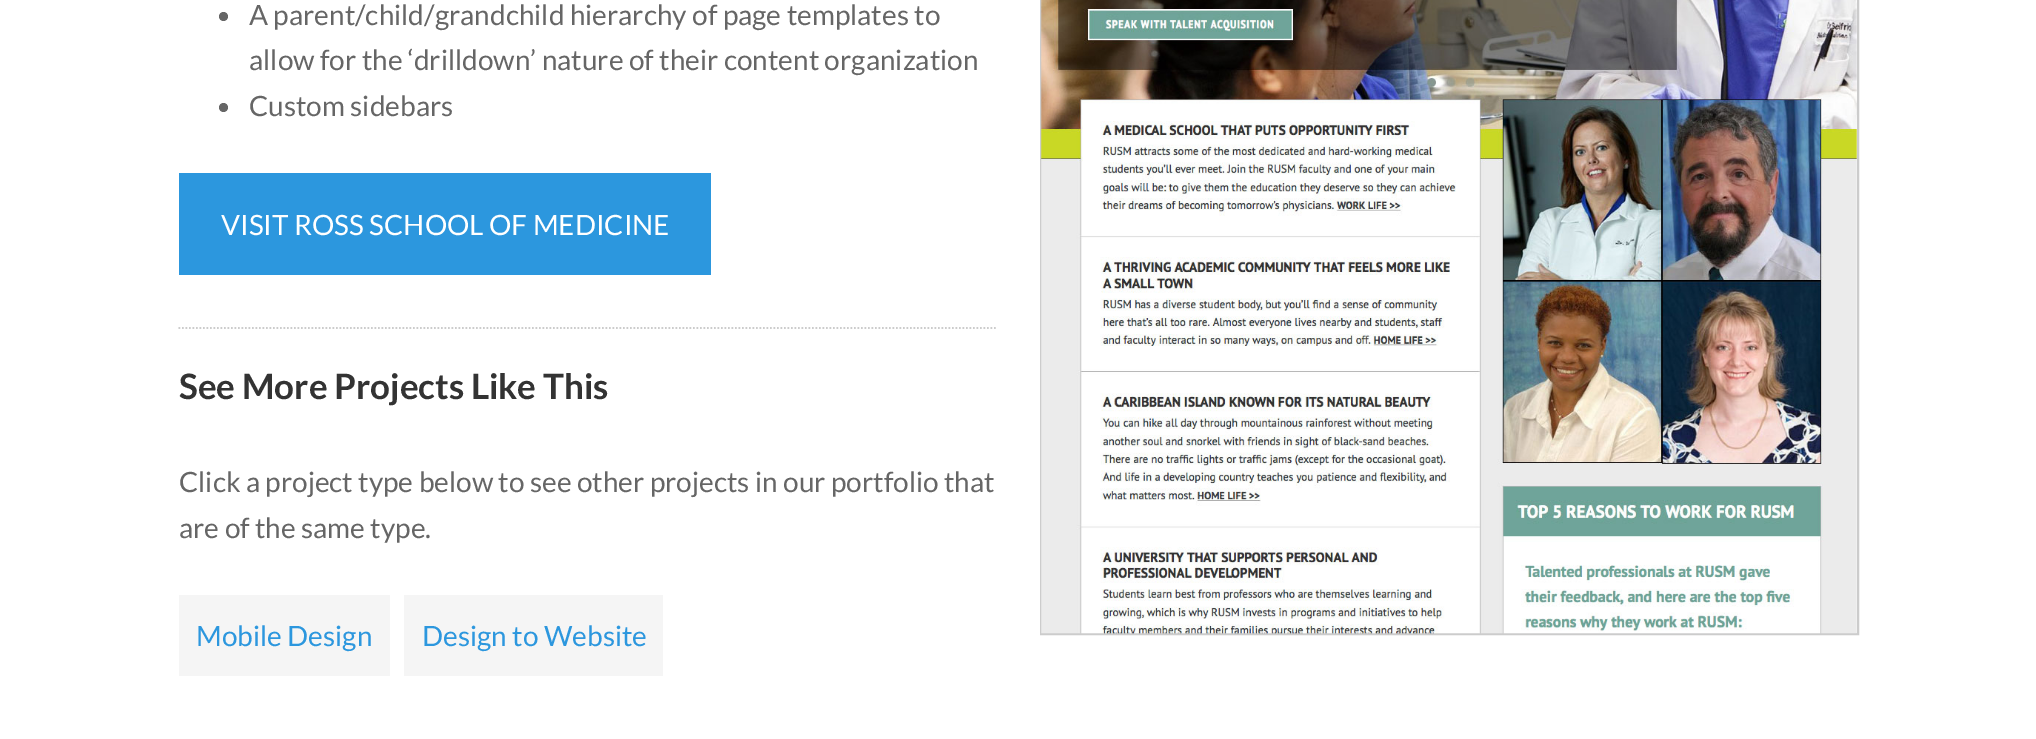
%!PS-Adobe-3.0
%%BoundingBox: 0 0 2036 739
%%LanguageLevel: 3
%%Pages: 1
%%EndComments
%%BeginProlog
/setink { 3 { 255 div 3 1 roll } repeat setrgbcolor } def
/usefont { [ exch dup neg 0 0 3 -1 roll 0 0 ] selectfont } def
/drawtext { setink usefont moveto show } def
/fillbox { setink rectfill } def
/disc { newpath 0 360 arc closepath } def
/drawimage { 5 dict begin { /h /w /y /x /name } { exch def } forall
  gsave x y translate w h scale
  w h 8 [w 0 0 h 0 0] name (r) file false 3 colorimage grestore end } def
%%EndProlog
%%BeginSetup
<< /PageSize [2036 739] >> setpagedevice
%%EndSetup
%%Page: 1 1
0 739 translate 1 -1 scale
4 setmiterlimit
0 0 2036 739 255 255 255 fillbox
102 102 102 setink
223.5 16.5 4.5 disc fill
(A parent/child/grandchild hierarchy of page templates to) 249 25 /Lato-Regular 28 102 102 102 drawtext
(allow for the ‘drilldown’ nature of their content organization) 249 70 /Lato-Regular 28 102 102 102 drawtext
223.5 107.5 4.5 disc fill
(Custom sidebars) 249 116 /Lato-Regular 28 102 102 102 drawtext
204 204 204 setink
1.8 setlinewidth
[1.75 1.75] 0 setdash
178.5 328 moveto 997.5 328 lineto stroke
179 173 532 102 44 151 222 fillbox
(VISIT ROSS SCHOOL OF MEDICINE) 221 235 /Lato-Regular 28 255 255 255 drawtext
(See More Projects Like This) 179 399 /Lato-Bold 35 51 51 51 drawtext
(Click a project type below to see other projects in our portfolio that) 179 492 /Lato-Regular 28 102 102 102 drawtext
(are of the same type.) 179 538 /Lato-Regular 28 102 102 102 drawtext
179 595 211 81 245 245 245 fillbox
(Mobile Design) 196 646 /Lato-Regular 28 44 151 222 drawtext
404 595 259 81 245 245 245 fillbox
(Design to Website) 422 646 /Lato-Regular 28 44 151 222 drawtext
204 204 204 setink
2 setlinewidth
[] 0 setdash
1041 -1 817 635 rectstroke
(assets/img1.rgb) 1041 0 816 634 drawimage
showpage
%%EOF
